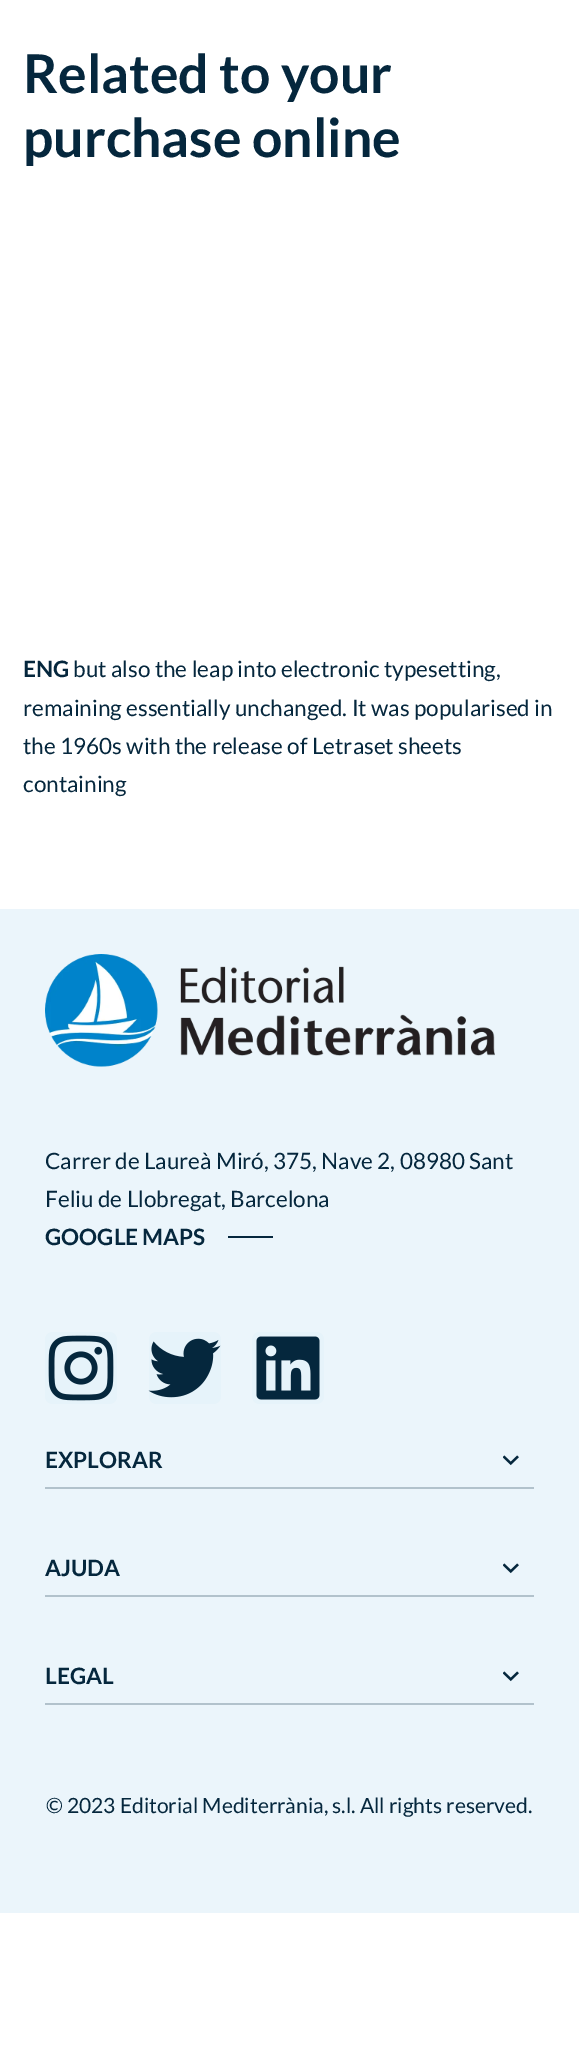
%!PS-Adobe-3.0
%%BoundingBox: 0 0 579 2048
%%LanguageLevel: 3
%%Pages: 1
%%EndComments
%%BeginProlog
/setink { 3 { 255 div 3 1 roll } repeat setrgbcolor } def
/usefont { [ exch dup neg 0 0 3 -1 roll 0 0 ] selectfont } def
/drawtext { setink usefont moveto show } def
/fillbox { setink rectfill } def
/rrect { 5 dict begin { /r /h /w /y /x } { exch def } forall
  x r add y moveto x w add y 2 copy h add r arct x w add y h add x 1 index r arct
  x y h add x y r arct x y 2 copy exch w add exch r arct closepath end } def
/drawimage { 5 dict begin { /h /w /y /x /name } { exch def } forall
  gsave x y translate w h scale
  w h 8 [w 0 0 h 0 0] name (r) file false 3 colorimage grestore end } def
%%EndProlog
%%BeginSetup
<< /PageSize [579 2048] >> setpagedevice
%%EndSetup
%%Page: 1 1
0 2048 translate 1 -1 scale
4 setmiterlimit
0 0 579 2048 255 255 255 fillbox
(Related to your) 23 93 /Lato-Bold 53.5 5 39 61 drawtext
(purchase online) 23 157 /Lato-Bold 53.5 5 39 61 drawtext
(ENG) 23 677 /Lato-Bold 22.5 5 39 61 drawtext
(but also the leap into electronic typesetting,) 73 677 /Lato-Regular 22.5 5 39 61 drawtext
(remaining essentially unchanged. It was popularised in) 23 716 /Lato-Regular 22.5 5 39 61 drawtext
(the 1960s with the release of Letraset sheets) 23 754 /Lato-Regular 22.5 5 39 61 drawtext
(containing) 23 792 /Lato-Regular 22.5 5 39 61 drawtext
0 909 579 1004 235 245 251 fillbox
(assets/img1.rgb) 45 954 450 113 drawimage
(Carrer de Laureà Miró, 375, Nave 2, 08980 Sant) 45 1169 /Lato-Regular 22.5 5 39 61 drawtext
(Feliu de Llobregat, Barcelona) 45 1207 /Lato-Regular 22.5 5 39 61 drawtext
(GOOGLE MAPS) 45 1245 /Lato-Bold 22.5 5 39 61 drawtext
228 1236 45 2 5 39 61 fillbox
230 243 250 setink
45 1332 72 72 8 rrect fill
(assets/img2.rgb) 48 1335 66 66 drawimage
149 1332 72 72 8 rrect fill
(assets/img3.rgb) 148 1338 73 60 drawimage
252 1332 72 72 8 rrect fill
(assets/img4.rgb) 256 1336 64 64 drawimage
(EXPLORAR) 45 1468 /Lato-Bold 22.5 5 39 61 drawtext
(assets/img5.rgb) 503 1455 16 11 drawimage
45 1487 489 2 178 194 204 fillbox
(AJUDA) 45 1576 /Lato-Bold 22.5 5 39 61 drawtext
(assets/img5.rgb) 503 1563 16 11 drawimage
45 1595 489 2 178 194 204 fillbox
(LEGAL) 45 1684 /Lato-Bold 22.5 5 39 61 drawtext
(assets/img5.rgb) 503 1671 16 11 drawimage
45 1703 489 2 178 194 204 fillbox
(© 2023 Editorial Mediterrània, s.l. All rights reserved.) 46 1813 /Lato-Regular 21 5 39 61 drawtext
showpage
%%EOF
